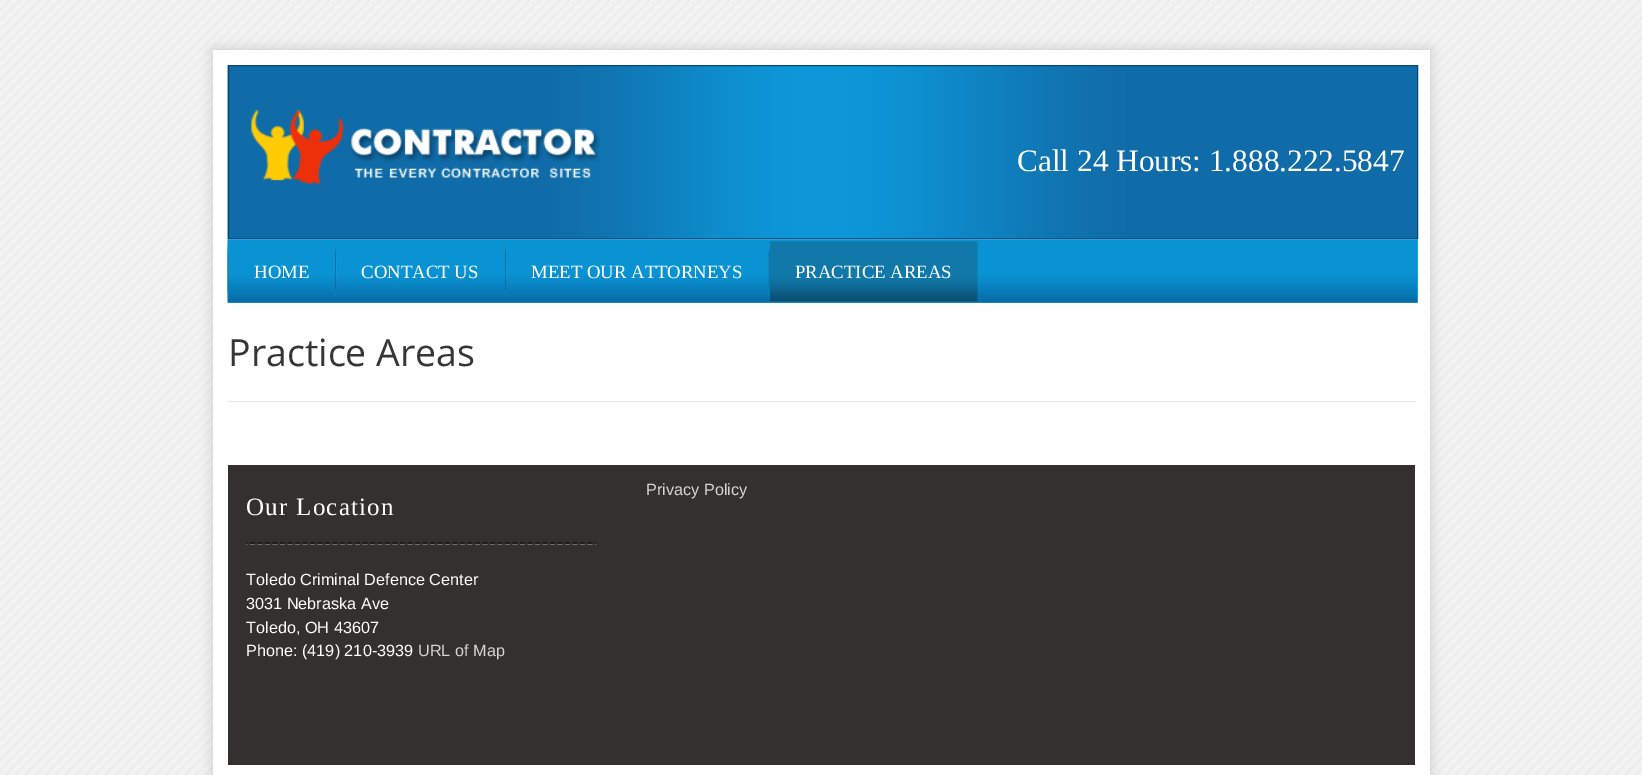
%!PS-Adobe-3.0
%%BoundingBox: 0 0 1642 775
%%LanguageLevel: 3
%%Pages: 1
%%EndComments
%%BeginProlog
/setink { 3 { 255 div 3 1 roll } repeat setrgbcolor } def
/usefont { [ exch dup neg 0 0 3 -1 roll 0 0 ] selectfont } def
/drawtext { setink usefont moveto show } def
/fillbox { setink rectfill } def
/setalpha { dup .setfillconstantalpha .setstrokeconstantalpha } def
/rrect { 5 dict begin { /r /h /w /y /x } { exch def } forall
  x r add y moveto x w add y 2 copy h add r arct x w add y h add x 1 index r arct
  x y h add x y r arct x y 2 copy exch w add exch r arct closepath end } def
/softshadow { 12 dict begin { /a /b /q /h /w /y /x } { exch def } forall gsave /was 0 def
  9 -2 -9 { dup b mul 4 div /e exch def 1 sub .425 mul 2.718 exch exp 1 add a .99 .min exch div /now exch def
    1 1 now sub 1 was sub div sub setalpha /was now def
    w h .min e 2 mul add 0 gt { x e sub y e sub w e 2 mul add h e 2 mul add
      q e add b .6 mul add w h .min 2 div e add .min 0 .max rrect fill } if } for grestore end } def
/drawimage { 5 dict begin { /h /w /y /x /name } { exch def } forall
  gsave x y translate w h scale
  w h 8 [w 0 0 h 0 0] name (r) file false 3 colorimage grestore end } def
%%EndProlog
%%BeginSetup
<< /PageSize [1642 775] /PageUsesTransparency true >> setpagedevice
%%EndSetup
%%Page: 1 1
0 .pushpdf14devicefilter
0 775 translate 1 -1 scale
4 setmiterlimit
0 0 1642 775 255 255 255 fillbox
(assets/img1.rgb) 0 0 1642 775 drawimage
0 0 0 setink
213 50 1217 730 0 6 0.17 softshadow
213 50 1217 725 255 255 255 fillbox
228 240 1190 63 25 167 234 fillbox
(assets/img4.rgb) 227 238 1191 65 drawimage
(assets/img2.rgb) 227 65 1190 174 drawimage
6 74 114 setink
228.5 65.5 1189 173 rectstroke
(assets/img3.rgb) 251 109 349 77 drawimage
(Call 24 Hours: 1.888.222.5847) 1017 171 /LiberationSerif-Regular 31.25 255 255 255 drawtext
228 239 1190 1 25 167 234 fillbox
(assets/img5.rgb) 227 241 3 57 drawimage
(assets/img6.rgb) 228 249 2 43 drawimage
(HOME) 254 278 /LiberationSerif-Regular 18.75 255 255 255 drawtext
(assets/img7.rgb) 335 242 3 55 drawimage
(assets/img8.rgb) 336 247 2 44 drawimage
(CONTACT US) 361 278 /LiberationSerif-Regular 18.75 255 255 255 drawtext
(assets/img7.rgb) 505 242 3 55 drawimage
(assets/img9.rgb) 506 247 2 44 drawimage
(MEET OUR ATTORNEYS) 531 278 /LiberationSerif-Regular 18.75 255 255 255 drawtext
(assets/img10.rgb) 768 242 2 55 drawimage
(assets/img11.rgb) 770 241 208 61 drawimage
(PRACTICE AREAS) 795 278 /LiberationSerif-Regular 18.75 255 255 255 drawtext
228 401 1187 1 230 230 230 fillbox
(Practice Areas) 228 366 /OpenSans-Regular 37.5 55 54 54 drawtext
228 465 1187 300 51 48 48 fillbox
(Privacy Policy) 646 495 /LiberationSans-Regular 16.25 215 212 212 drawtext
(assets/img12.rgb) 246 542 351 3 drawimage
/LiberationSerif-Regular 25 usefont
255 255 255 setink
246 515 moveto 1.25 0 (Our Location) ashow
(Toledo Criminal Defence Center) 246 585 /LiberationSans-Regular 16.25 255 255 255 drawtext
(3031 Nebraska Ave) 246 609 /LiberationSans-Regular 16.25 255 255 255 drawtext
(Toledo, OH 43607) 246 633 /LiberationSans-Regular 16.25 255 255 255 drawtext
(Phone: \(419\) 210-3939) 246 656 /LiberationSans-Regular 16.25 255 255 255 drawtext
(URL of Map) 418 656 /LiberationSans-Regular 16.25 215 212 212 drawtext
.poppdf14devicefilter showpage
%%EOF
